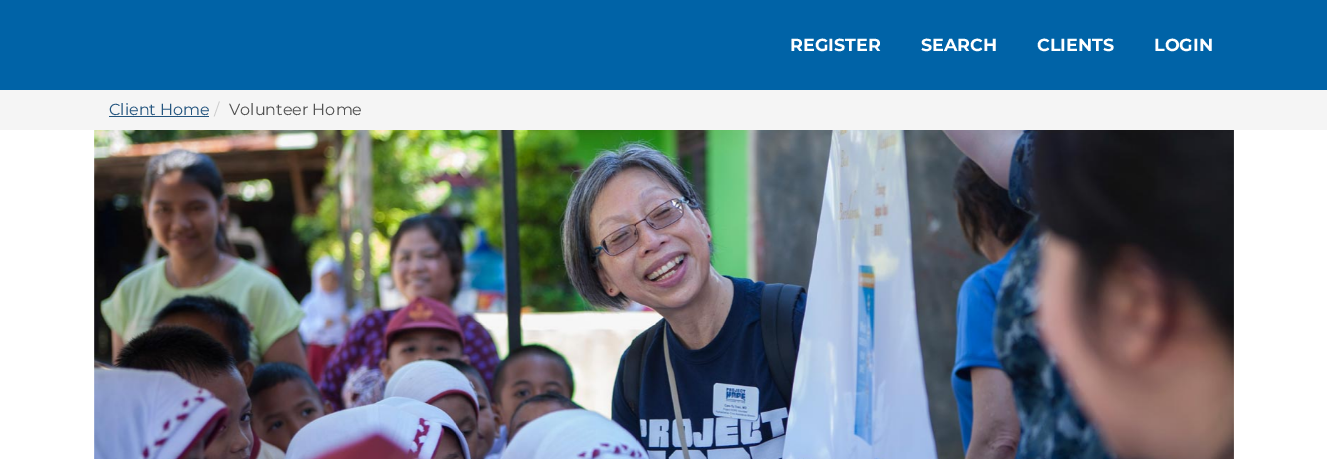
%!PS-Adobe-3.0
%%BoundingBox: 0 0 1327 459
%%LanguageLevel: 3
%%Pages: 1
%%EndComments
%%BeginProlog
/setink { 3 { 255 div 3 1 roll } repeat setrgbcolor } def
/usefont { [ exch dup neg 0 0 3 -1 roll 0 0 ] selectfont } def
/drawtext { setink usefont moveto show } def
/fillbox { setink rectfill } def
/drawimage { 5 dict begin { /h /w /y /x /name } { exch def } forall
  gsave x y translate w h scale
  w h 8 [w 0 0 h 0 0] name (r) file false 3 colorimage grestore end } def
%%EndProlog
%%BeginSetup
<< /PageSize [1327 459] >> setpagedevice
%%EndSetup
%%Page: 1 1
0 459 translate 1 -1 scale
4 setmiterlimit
0 0 1327 459 255 255 255 fillbox
0 0 1327 90 0 99 167 fillbox
(REGISTER) 790 51 /Montserrat-Bold 17.5 255 255 255 drawtext
(SEARCH) 921 51 /Montserrat-Bold 17.5 255 255 255 drawtext
(CLIENTS) 1037 51 /Montserrat-Bold 17.5 255 255 255 drawtext
(LOGIN) 1154 51 /Montserrat-Bold 17.5 255 255 255 drawtext
0 90 1327 40 245 245 245 fillbox
(Client Home) 109 115 /Montserrat-Regular 16 36 85 127 drawtext
109 116 100 1 36 85 127 fillbox
(/) 214 115 /Montserrat-Regular 16 204 204 204 drawtext
(Volunteer Home) 229 115 /Montserrat-Regular 16 82 82 82 drawtext
(assets/img1.rgb) 94 130 1140 329 drawimage
showpage
%%EOF
